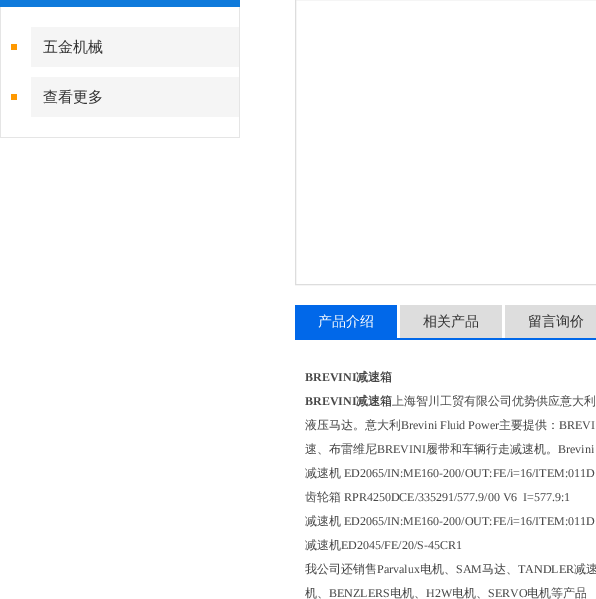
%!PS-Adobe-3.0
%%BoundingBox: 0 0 596 599
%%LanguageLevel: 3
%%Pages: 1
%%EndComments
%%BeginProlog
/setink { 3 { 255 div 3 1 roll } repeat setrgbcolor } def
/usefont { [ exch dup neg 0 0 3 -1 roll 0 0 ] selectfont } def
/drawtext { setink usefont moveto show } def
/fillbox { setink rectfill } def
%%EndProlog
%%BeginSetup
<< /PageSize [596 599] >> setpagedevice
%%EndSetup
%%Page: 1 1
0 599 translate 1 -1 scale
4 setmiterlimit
0 0 596 599 255 255 255 fillbox
0 0 240 7 15 122 219 fillbox
239 7 1 131 229 229 229 fillbox
0 137 240 1 229 229 229 fillbox
0 7 1 131 229 229 229 fillbox
11 44 6 6 255 153 0 fillbox
31 27 208 40 245 245 245 fillbox
(五金机械) 43 52 /WenQuanYiZenHei-Medium 15 51 51 51 drawtext
11 94 6 6 255 153 0 fillbox
31 77 208 40 245 245 245 fillbox
(查看更多) 43 102 /WenQuanYiZenHei-Medium 15 51 51 51 drawtext
221 221 221 setink
295.5 -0.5 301 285 rectstroke
295 338 301 2 1 104 233 fillbox
295 305 102 33 1 104 233 fillbox
(产品介绍) 318 326 /WenQuanYiZenHei-Medium 14 255 255 255 drawtext
400 305 102 33 221 221 221 fillbox
(相关产品) 423 326 /WenQuanYiZenHei-Medium 14 51 51 51 drawtext
505 305 91 33 221 221 221 fillbox
(留言询价) 528 326 /WenQuanYiZenHei-Medium 14 51 51 51 drawtext
(BREVINI) 305 381 /LiberationSerif-Bold 12 71 71 71 drawtext
(减速箱) 356 381 /WenQuanYiZenHei-Bold 12 71 71 71 drawtext
(BREVINI) 305 405 /LiberationSerif-Bold 12 71 71 71 drawtext
(减速箱) 356 405 /WenQuanYiZenHei-Bold 12 71 71 71 drawtext
(上海智川工贸有限公司优势供应意大利) 392 405 /WenQuanYiZenHei-Medium 12 71 71 71 drawtext
(液压马达。意大利) 305 429 /WenQuanYiZenHei-Medium 12 71 71 71 drawtext
(Brevini Fluid Power) 401 429 /LiberationSerif-Regular 12 71 71 71 drawtext
(主要提供：) 499 429 /WenQuanYiZenHei-Medium 12 71 71 71 drawtext
(BREVI) 559 429 /LiberationSerif-Regular 12 71 71 71 drawtext
(速、布雷维尼) 305 453 /WenQuanYiZenHei-Medium 12 71 71 71 drawtext
(BREVINI) 377 453 /LiberationSerif-Regular 12 71 71 71 drawtext
(履带和车辆行走减速机。) 426 453 /WenQuanYiZenHei-Medium 12 71 71 71 drawtext
(Brevini) 558 453 /LiberationSerif-Regular 12 71 71 71 drawtext
(减速机) 305 477 /WenQuanYiZenHei-Medium 12 71 71 71 drawtext
(ED2065/IN:ME160-200/OUT:FE/i=16/ITEM:011D) 344 477 /LiberationSerif-Regular 12 71 71 71 drawtext
(齿轮箱) 305 501 /WenQuanYiZenHei-Medium 12 71 71 71 drawtext
(RPR4250DCE/335291/577.9/00 V6  I=577.9:1) 344 501 /LiberationSerif-Regular 12 71 71 71 drawtext
(减速机) 305 525 /WenQuanYiZenHei-Medium 12 71 71 71 drawtext
(ED2065/IN:ME160-200/OUT:FE/i=16/ITEM:011D) 344 525 /LiberationSerif-Regular 12 71 71 71 drawtext
(减速机) 305 549 /WenQuanYiZenHei-Medium 12 71 71 71 drawtext
(ED2045/FE/20/S-45CR1) 341 549 /LiberationSerif-Regular 12 71 71 71 drawtext
(我公司还销售) 305 573 /WenQuanYiZenHei-Medium 12 71 71 71 drawtext
(Parvalux) 377 573 /LiberationSerif-Regular 12 71 71 71 drawtext
(电机、) 420 573 /WenQuanYiZenHei-Medium 12 71 71 71 drawtext
(SAM) 456 573 /LiberationSerif-Regular 12 71 71 71 drawtext
(马达、) 482 573 /WenQuanYiZenHei-Medium 12 71 71 71 drawtext
(TANDLER) 518 573 /LiberationSerif-Regular 12 71 71 71 drawtext
(减速) 574 573 /WenQuanYiZenHei-Medium 12 71 71 71 drawtext
(机、) 305 597 /WenQuanYiZenHei-Medium 12 71 71 71 drawtext
(BENZLERS) 329 597 /LiberationSerif-Regular 12 71 71 71 drawtext
(电机、) 390 597 /WenQuanYiZenHei-Medium 12 71 71 71 drawtext
(H2W) 426 597 /LiberationSerif-Regular 12 71 71 71 drawtext
(电机、) 452 597 /WenQuanYiZenHei-Medium 12 71 71 71 drawtext
(SERVO) 488 597 /LiberationSerif-Regular 12 71 71 71 drawtext
(电机等产品) 527 597 /WenQuanYiZenHei-Medium 12 71 71 71 drawtext
showpage
%%EOF
